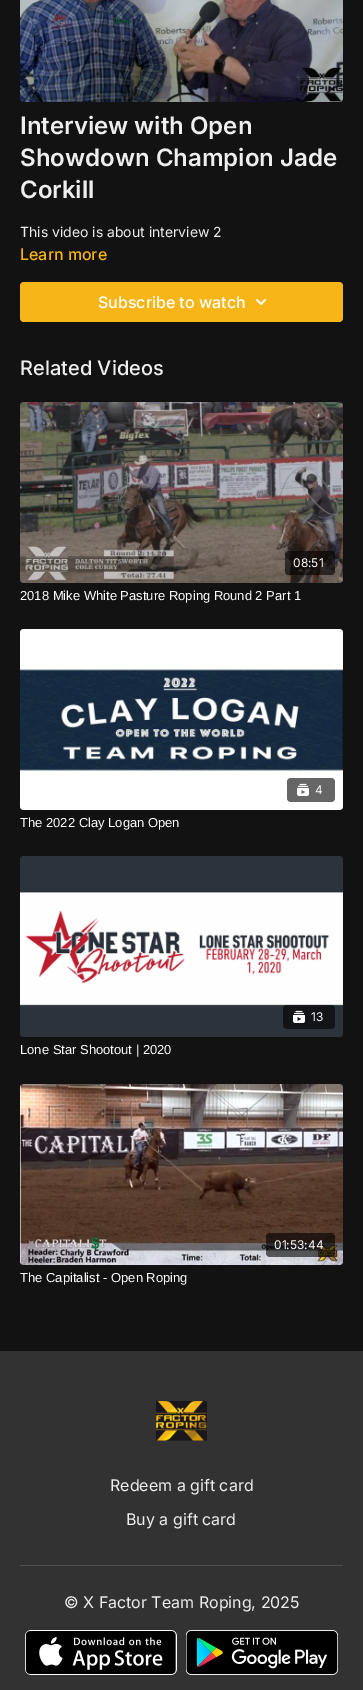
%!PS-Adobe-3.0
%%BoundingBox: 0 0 363 1690
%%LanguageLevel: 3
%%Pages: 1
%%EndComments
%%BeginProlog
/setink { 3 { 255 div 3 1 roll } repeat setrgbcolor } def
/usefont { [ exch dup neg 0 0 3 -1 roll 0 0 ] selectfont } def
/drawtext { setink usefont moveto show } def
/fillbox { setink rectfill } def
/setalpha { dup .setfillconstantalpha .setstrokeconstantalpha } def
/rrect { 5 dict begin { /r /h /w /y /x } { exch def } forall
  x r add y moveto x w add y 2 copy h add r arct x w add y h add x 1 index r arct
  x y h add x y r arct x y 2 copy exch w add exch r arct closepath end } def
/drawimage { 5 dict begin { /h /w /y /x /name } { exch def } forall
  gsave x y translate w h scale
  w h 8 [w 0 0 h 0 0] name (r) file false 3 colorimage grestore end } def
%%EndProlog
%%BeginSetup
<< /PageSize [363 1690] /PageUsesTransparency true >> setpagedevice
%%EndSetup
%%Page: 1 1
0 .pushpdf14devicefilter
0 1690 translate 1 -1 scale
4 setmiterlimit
0 0 363 1690 18 18 18 fillbox
(assets/img1.rgb) 20 0 323 102 drawimage
(Interview with Open) 20 134 /Inter-SemiBold 24 238 238 238 drawtext
(Showdown Champion Jade) 20 166 /Inter-SemiBold 24 238 238 238 drawtext
(Corkill) 20 198 /Inter-SemiBold 24 238 238 238 drawtext
(This video is about interview 2) 20 237 /Inter-Regular 14 238 238 238 drawtext
(Learn more) 20 260 /Inter-Medium 16 248 181 24 drawtext
20 282 323 40 4 rrect fill
(Subscribe to watch) 98 308 /Inter-Medium 16 255 255 255 drawtext
(assets/img2.rgb) 256 299 10 6 drawimage
(Related Videos) 20 375 /Inter-Medium 20 238 238 238 drawtext
(assets/img3.rgb) 20 402 323 181 drawimage
0.6 setalpha
0 0 0 setink
285 551 50 24 4 rrect fill
1 setalpha
(08:51) 293 567 /Inter-Regular 12 255 255 255 drawtext
(2018 Mike White Pasture Roping Round 2 Part 1) 20 600 /LiberationSans-Regular 13 255 255 255 drawtext
(assets/img4.rgb) 20 629 323 181 drawimage
102 102 102 setink
287 778 48 24 4 rrect fill
(assets/img5.rgb) 297 783 12 13 drawimage
(4) 315 794 /Inter-Regular 12 255 255 255 drawtext
(The 2022 Clay Logan Open) 20 827 /LiberationSans-Regular 13 255 255 255 drawtext
(assets/img6.rgb) 20 856 323 181 drawimage
0.6 setalpha
0 0 0 setink
283 1005 52 24 4 rrect fill
1 setalpha
(assets/img7.rgb) 293 1010 12 13 drawimage
(13) 311 1021 /Inter-Regular 12 255 255 255 drawtext
(Lone Star Shootout | 2020) 20 1054 /LiberationSans-Regular 13 255 255 255 drawtext
(assets/img8.rgb) 20 1084 323 181 drawimage
0.6 setalpha
0 0 0 setink
266 1233 69 24 4 rrect fill
1 setalpha
(01:53:44) 274 1249 /Inter-Regular 12 255 255 255 drawtext
(The Capitalist - Open Roping) 20 1282 /LiberationSans-Regular 13 255 255 255 drawtext
0 1351 363 339 50 50 50 fillbox
(assets/img9.rgb) 156 1401 51 40 drawimage
(Redeem a gift card) 110 1491 /Inter-Regular 16 238 238 238 drawtext
(Buy a gift card) 126 1525 /Inter-Regular 16 238 238 238 drawtext
20 1565 323 1 80 80 80 fillbox
(© X Factor Team Roping, 2025) 64 1608 /Inter-Regular 16 238 238 238 drawtext
(assets/img10.rgb) 25 1630 152 45 drawimage
(assets/img11.rgb) 186 1630 152 45 drawimage
.poppdf14devicefilter showpage
%%EOF
